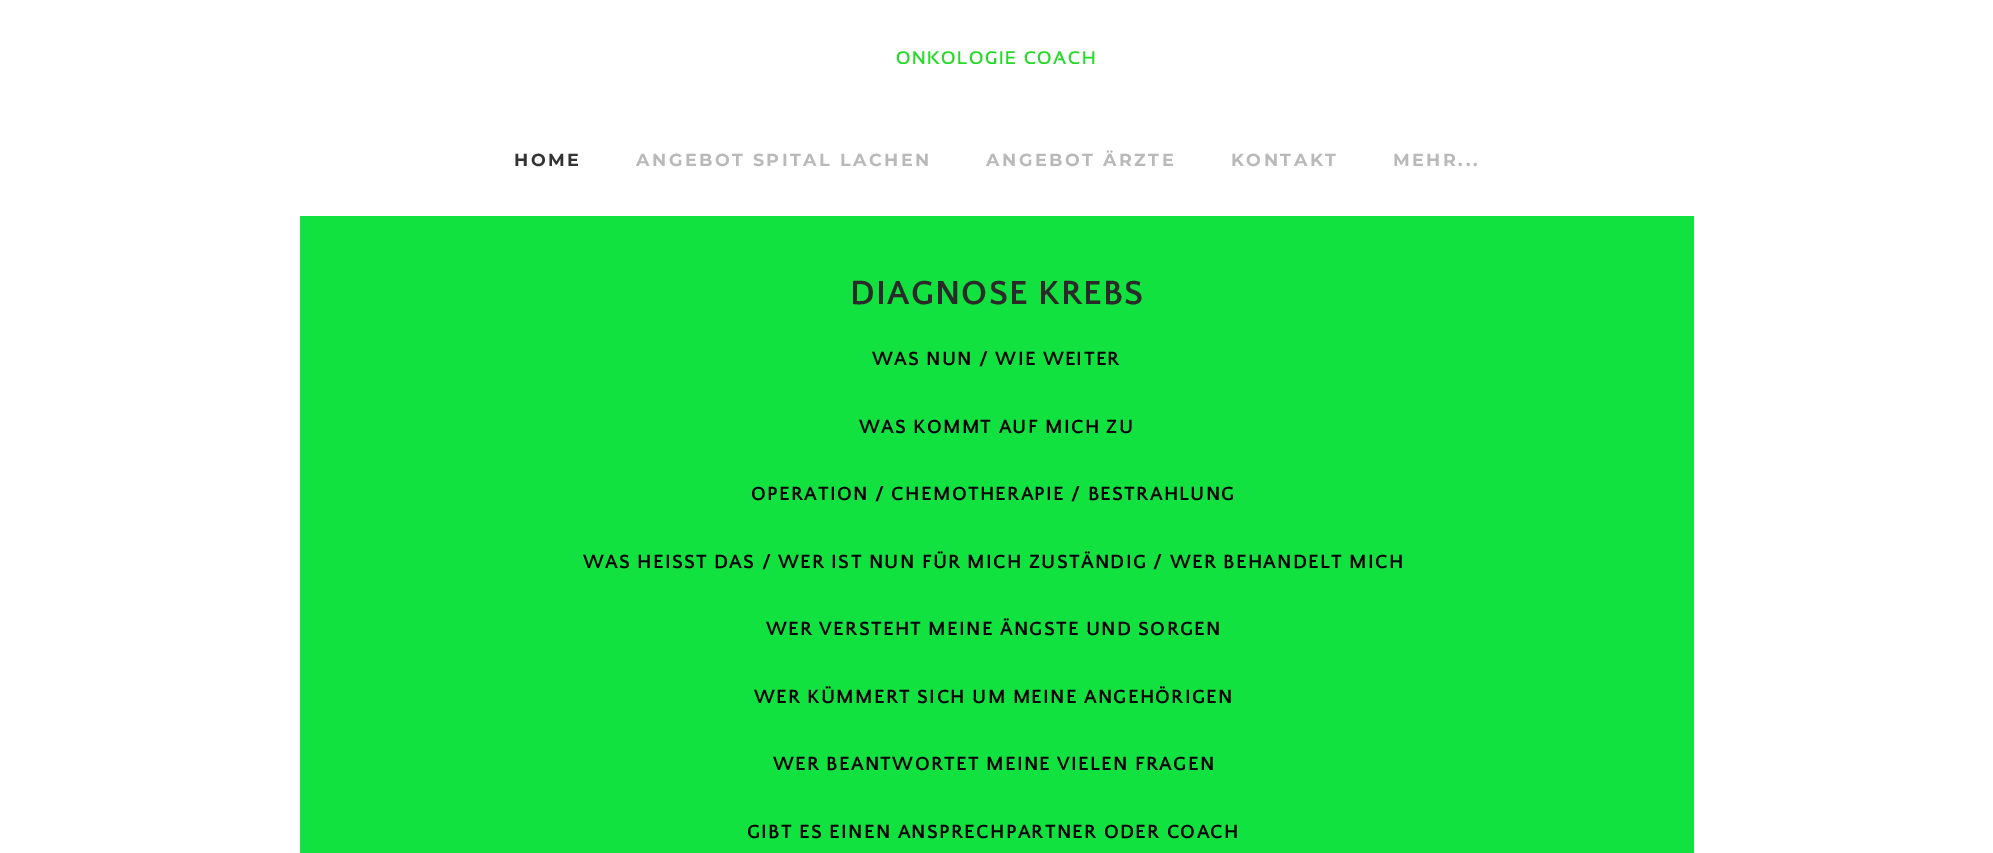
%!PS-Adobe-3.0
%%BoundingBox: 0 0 1993 853
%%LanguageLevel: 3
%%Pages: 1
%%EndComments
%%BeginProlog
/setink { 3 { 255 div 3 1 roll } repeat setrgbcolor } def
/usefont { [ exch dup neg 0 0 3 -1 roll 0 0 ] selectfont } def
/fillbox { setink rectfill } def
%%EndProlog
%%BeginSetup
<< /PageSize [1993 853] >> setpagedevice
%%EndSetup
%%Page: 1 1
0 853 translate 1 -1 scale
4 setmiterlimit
0 0 1993 853 255 255 255 fillbox
/Sansation-Bold 17.5 usefont
37 218 40 setink
896 64 moveto 2 0 (ONKOLOGIE COACH) ashow
/Montserrat-Thin 17.5 usefont
51 51 51 setink
514 166 moveto 2.5 0 (HOME) ashow
185 185 185 setink
636 166 moveto 2.5 0 (ANGEBOT SPITAL LACHEN) ashow
986 166 moveto 2.5 0 (ANGEBOT ÄRZTE) ashow
1231 166 moveto 2.5 0 (KONTAKT) ashow
1393 166 moveto 2.5 0 (MEHR...) ashow
300 216 1394 637 17 226 63 fillbox
/QuattrocentoSans-Bold 35 usefont
42 42 42 setink
850 304 moveto 1.25 0 (DIAGNOSE KREBS) ashow
/QuattrocentoSans-Bold 20 usefont
2 2 2 setink
872 365 moveto 1.25 0 (WAS NUN / WIE WEITER) ashow
859 433 moveto 1.25 0 (WAS KOMMT AUF MICH ZU) ashow
751 500 moveto 1.25 0 (OPERATION / CHEMOTHERAPIE / BESTRAHLUNG) ashow
583 568 moveto 1.25 0 (WAS HEISST DAS / WER IST NUN FÜR MICH ZUSTÄNDIG / WER BEHANDELT MICH) ashow
766 635 moveto 1.25 0 (WER VERSTEHT MEINE ÄNGSTE UND SORGEN) ashow
754 703 moveto 1.25 0 (WER KÜMMERT SICH UM MEINE ANGEHÖRIGEN) ashow
773 770 moveto 1.25 0 (WER BEANTWORTET MEINE VIELEN FRAGEN) ashow
747 838 moveto 1.25 0 (GIBT ES EINEN ANSPRECHPARTNER ODER COACH) ashow
showpage
%%EOF
